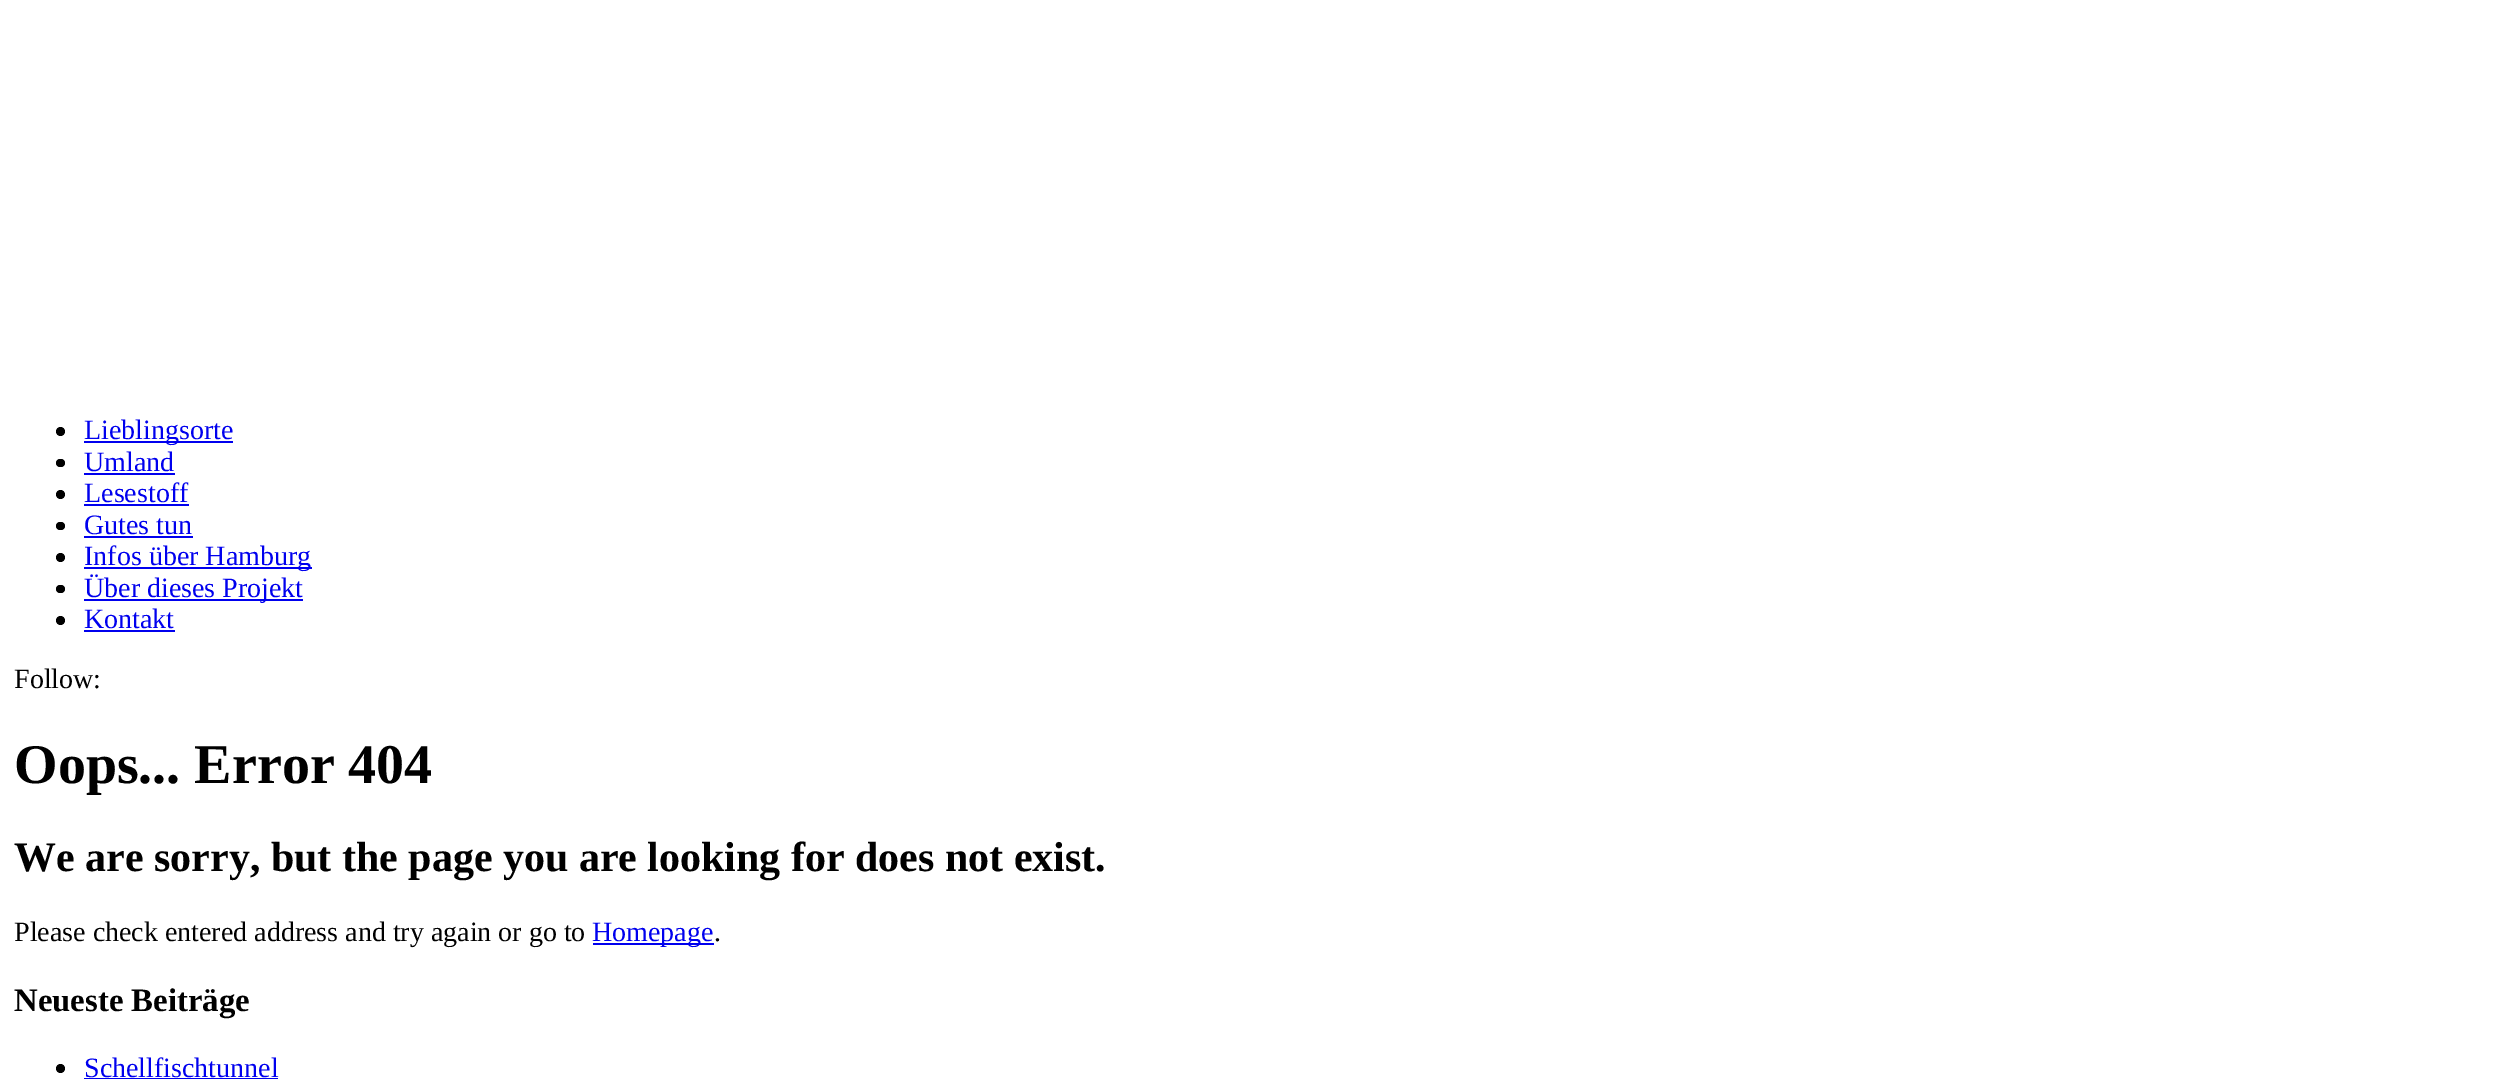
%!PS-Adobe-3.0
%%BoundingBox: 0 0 2517 1079
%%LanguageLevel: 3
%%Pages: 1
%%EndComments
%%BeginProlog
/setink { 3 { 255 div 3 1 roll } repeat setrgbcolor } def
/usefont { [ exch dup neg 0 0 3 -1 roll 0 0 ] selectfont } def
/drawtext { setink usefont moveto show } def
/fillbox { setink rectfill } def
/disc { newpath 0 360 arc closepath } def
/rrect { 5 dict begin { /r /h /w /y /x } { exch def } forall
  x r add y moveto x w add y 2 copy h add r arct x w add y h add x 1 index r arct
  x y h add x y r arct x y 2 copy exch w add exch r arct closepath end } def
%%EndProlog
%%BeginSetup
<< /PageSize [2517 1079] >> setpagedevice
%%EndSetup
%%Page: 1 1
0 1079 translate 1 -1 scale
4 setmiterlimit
0 0 2517 1079 255 255 255 fillbox
0 0 0 setink
60.5 431.5 4.5 disc fill
84 441 149 2 0 0 238 fillbox
(Lieblingsorte) 84 439 /LiberationSerif-Regular 28 0 0 238 drawtext
0 0 0 setink
56 459 9 8 4 rrect fill
(Umland) 84 471 /LiberationSerif-Regular 28 0 0 238 drawtext
84 473 91 2 0 0 238 fillbox
0 0 0 setink
60.5 494.5 4.5 disc fill
(Lesestoff) 84 502 /LiberationSerif-Regular 28 0 0 238 drawtext
84 504 105 2 0 0 238 fillbox
0 0 0 setink
56 522 9 8 4 rrect fill
(Gutes tun) 84 534 /LiberationSerif-Regular 28 0 0 238 drawtext
84 536 109 2 0 0 238 fillbox
0 0 0 setink
60.5 557.5 4.5 disc fill
84 567 228 2 0 0 238 fillbox
(Infos über Hamburg) 84 565 /LiberationSerif-Regular 28 0 0 238 drawtext
0 0 0 setink
56 585 9 8 4 rrect fill
84 599 219 2 0 0 238 fillbox
(Über dieses Projekt) 84 597 /LiberationSerif-Regular 28 0 0 238 drawtext
0 0 0 setink
60.5 620.5 4.5 disc fill
(Kontakt) 84 628 /LiberationSerif-Regular 28 0 0 238 drawtext
84 630 91 2 0 0 238 fillbox
(Follow:) 14 688 /LiberationSerif-Regular 28 0 0 0 drawtext
(Oops... Error 404) 14 783 /LiberationSerif-Bold 56 0 0 0 drawtext
(We are sorry, but the page you are looking for does not exist.) 14 871 /LiberationSerif-Bold 42 0 0 0 drawtext
(Please check entered address and try again or go to) 14 941 /LiberationSerif-Regular 28 0 0 0 drawtext
593 943 121 2 0 0 238 fillbox
(Homepage) 592 941 /LiberationSerif-Regular 28 0 0 238 drawtext
(.) 714 941 /LiberationSerif-Regular 28 0 0 0 drawtext
(Neueste Beiträge) 14 1011 /LiberationSerif-Bold 32.75 0 0 0 drawtext
60.5 1068.5 4.5 disc fill
(Schellfischtunnel) 84 1077 /LiberationSerif-Regular 28 0 0 238 drawtext
84 1078 194 1 0 0 238 fillbox
showpage
%%EOF
